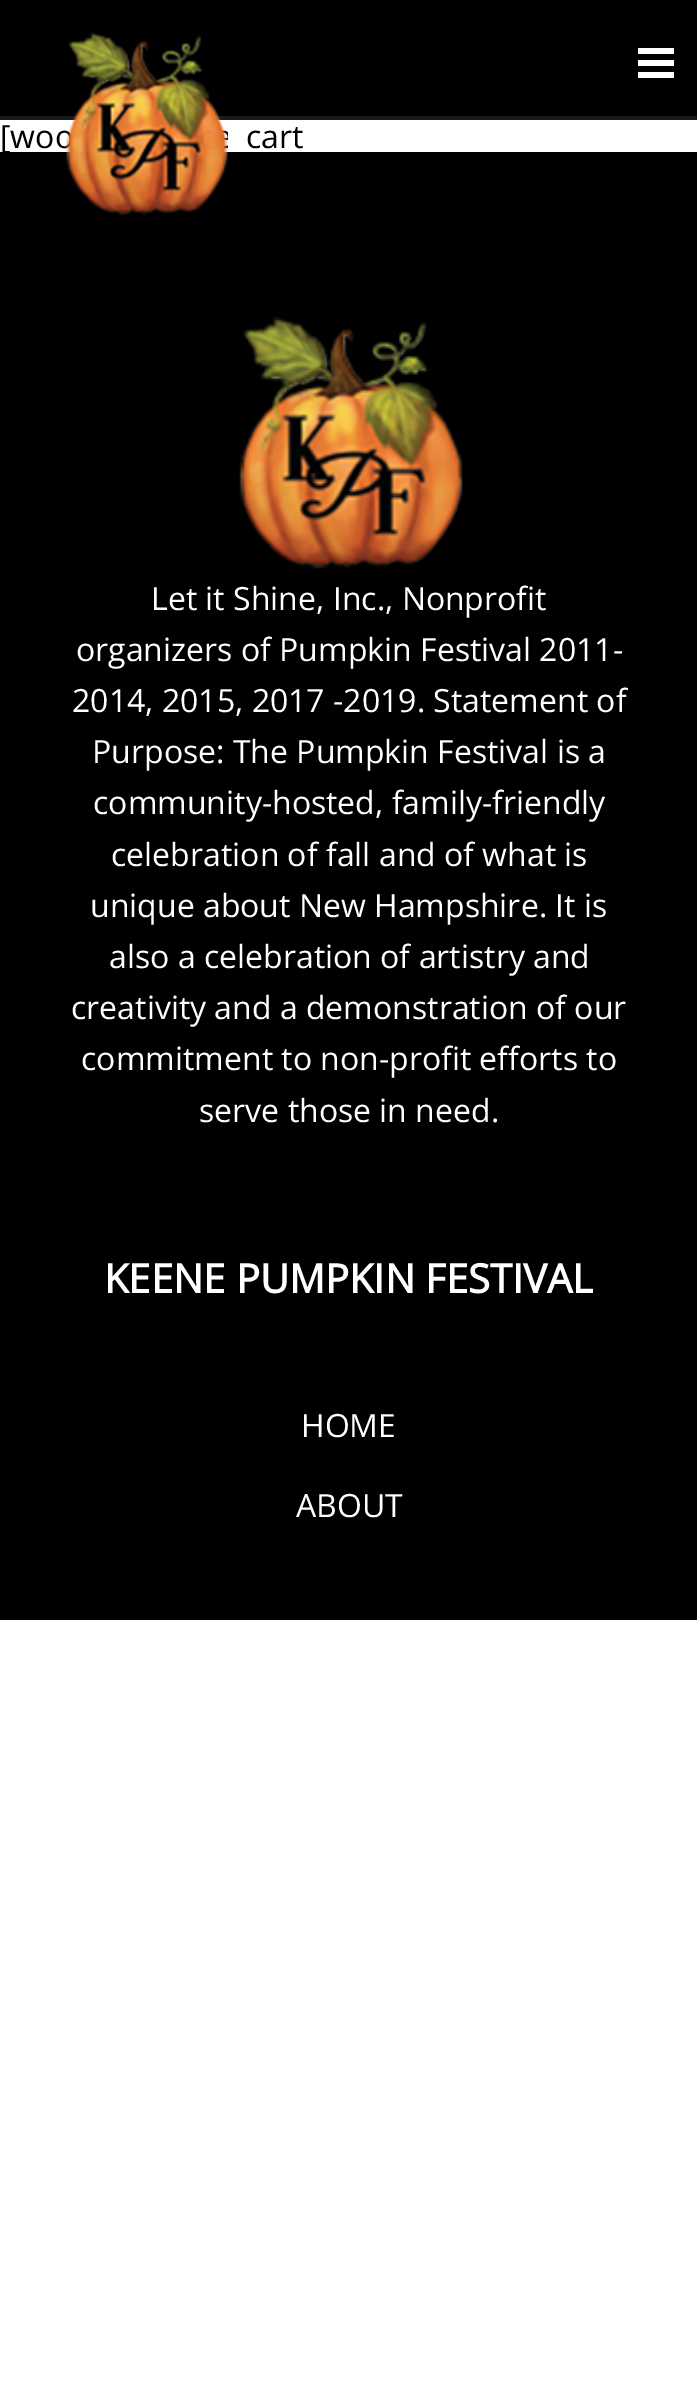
%!PS-Adobe-3.0
%%BoundingBox: 0 0 697 2387
%%LanguageLevel: 3
%%Pages: 1
%%EndComments
%%BeginProlog
/setink { 3 { 255 div 3 1 roll } repeat setrgbcolor } def
/usefont { [ exch dup neg 0 0 3 -1 roll 0 0 ] selectfont } def
/drawtext { setink usefont moveto show } def
/fillbox { setink rectfill } def
/drawimage { 5 dict begin { /h /w /y /x /name } { exch def } forall
  gsave x y translate w h scale
  w h 8 [w 0 0 h 0 0] name (r) file false 3 colorimage grestore end } def
%%EndProlog
%%BeginSetup
<< /PageSize [697 2387] >> setpagedevice
%%EndSetup
%%Page: 1 1
0 2387 translate 1 -1 scale
4 setmiterlimit
0 0 697 2387 255 255 255 fillbox
0 0 697 116 0 0 0 fillbox
0 116 697 4 26 26 26 fillbox
([woo) 0 148 /OpenSans-Regular 32 0 0 0 drawtext
0 152 697 1468 0 0 0 fillbox
(assets/img1.rgb) 66 32 162 184 drawimage
638 60 36 6 255 255 255 fillbox
638 48 36 6 255 255 255 fillbox
638 72 36 6 255 255 255 fillbox
(cart) 246 148 /OpenSans-Regular 32 0 0 0 drawtext
(assets/img2.rgb) 239 316 224 253 drawimage
(Let it Shine, Inc., Nonprofit) 151 610 /OpenSans-Regular 32 255 255 255 drawtext
(organizers of Pumpkin Festival 2011-) 76 661 /OpenSans-Regular 32 255 255 255 drawtext
(2014, 2015, 2017 -2019. Statement of) 72 712 /OpenSans-Regular 32 255 255 255 drawtext
(Purpose: The Pumpkin Festival is a) 92 763 /OpenSans-Regular 32 255 255 255 drawtext
(community-hosted, family-friendly) 93 814 /OpenSans-Regular 32 255 255 255 drawtext
(celebration of fall and of what is) 111 866 /OpenSans-Regular 32 255 255 255 drawtext
(unique about New Hampshire. It is) 90 917 /OpenSans-Regular 32 255 255 255 drawtext
(also a celebration of artistry and) 109 968 /OpenSans-Regular 32 255 255 255 drawtext
(creativity and a demonstration of our) 71 1019 /OpenSans-Regular 32 255 255 255 drawtext
(commitment to non-profit efforts to) 81 1070 /OpenSans-Regular 32 255 255 255 drawtext
(serve those in need.) 199 1122 /OpenSans-Regular 32 255 255 255 drawtext
(KEENE PUMPKIN FESTIVAL) 104 1293 /OpenSans-Bold 40 255 255 255 drawtext
(HOME) 301 1437 /OpenSans-Regular 32 255 255 255 drawtext
(ABOUT) 296 1517 /OpenSans-Regular 32 255 255 255 drawtext
showpage
%%EOF
